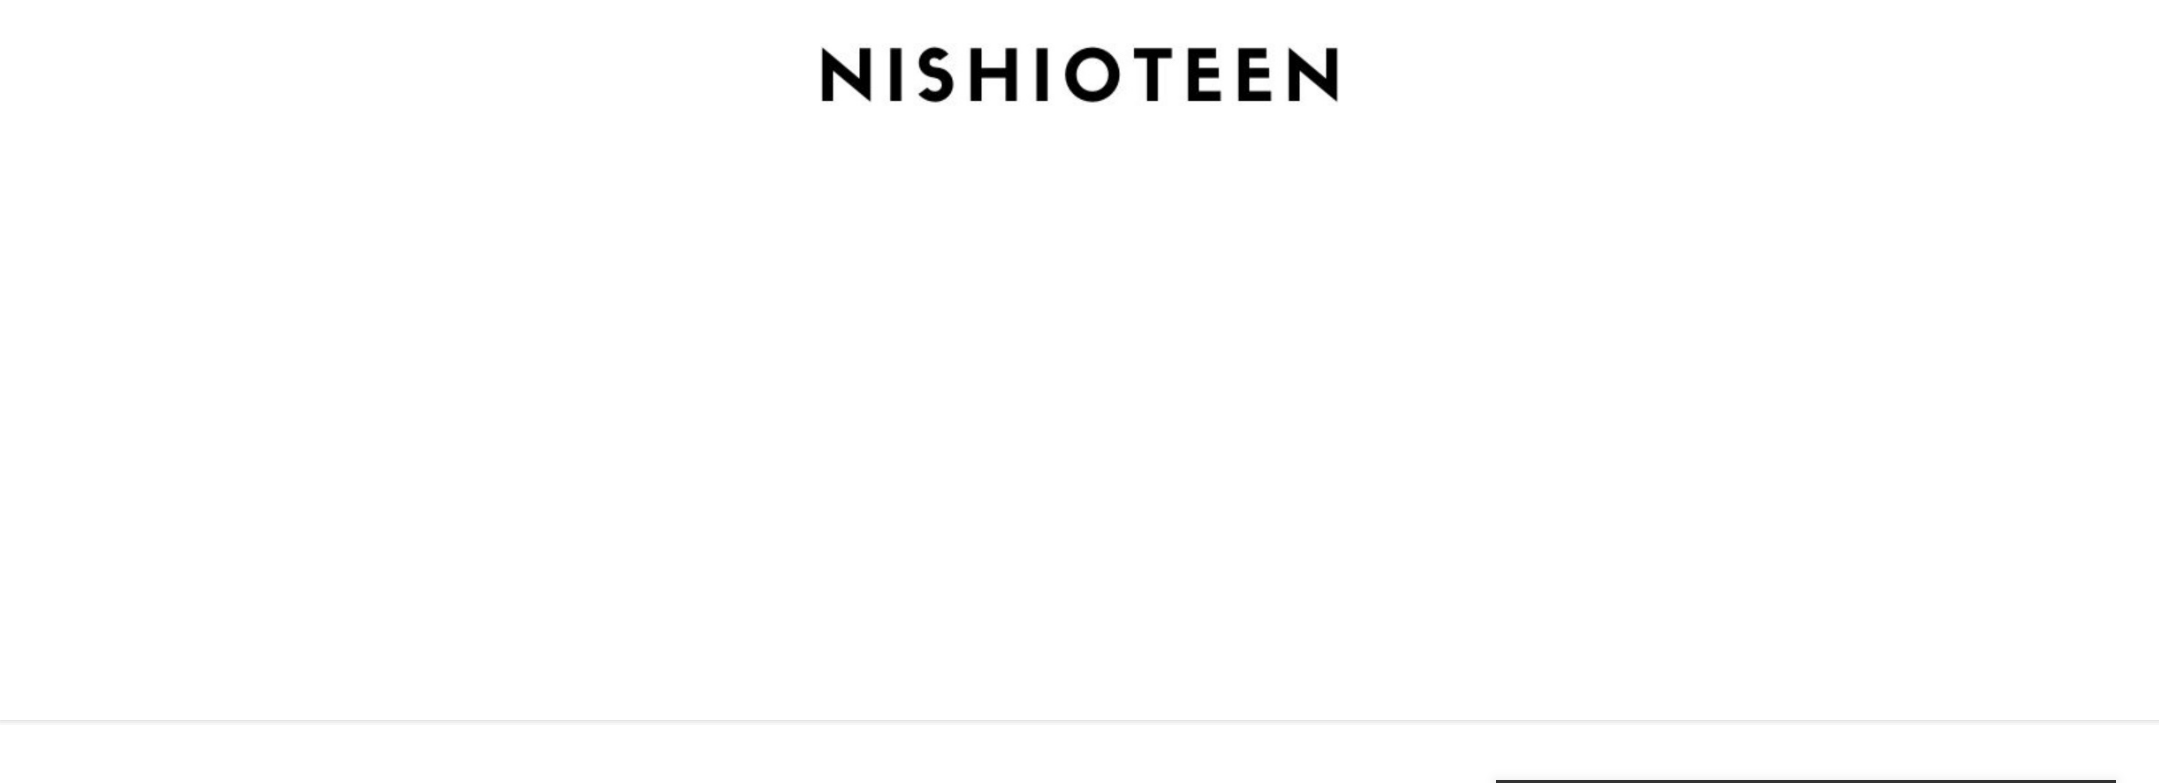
%!PS-Adobe-3.0
%%BoundingBox: 0 0 2159 783
%%LanguageLevel: 3
%%Pages: 1
%%EndComments
%%BeginProlog
/setink { 3 { 255 div 3 1 roll } repeat setrgbcolor } def
/fillbox { setink rectfill } def
/setalpha { dup .setfillconstantalpha .setstrokeconstantalpha } def
/rrect { 5 dict begin { /r /h /w /y /x } { exch def } forall
  x r add y moveto x w add y 2 copy h add r arct x w add y h add x 1 index r arct
  x y h add x y r arct x y 2 copy exch w add exch r arct closepath end } def
/softshadow { 12 dict begin { /a /b /q /h /w /y /x } { exch def } forall gsave /was 0 def
  9 -2 -9 { dup b mul 4 div /e exch def 1 sub .425 mul 2.718 exch exp 1 add a .99 .min exch div /now exch def
    1 1 now sub 1 was sub div sub setalpha /was now def
    w h .min e 2 mul add 0 gt { x e sub y e sub w e 2 mul add h e 2 mul add
      q e add b .6 mul add w h .min 2 div e add .min 0 .max rrect fill } if } for grestore end } def
/drawimage { 5 dict begin { /h /w /y /x /name } { exch def } forall
  gsave x y translate w h scale
  w h 8 [w 0 0 h 0 0] name (r) file false 3 colorimage grestore end } def
%%EndProlog
%%BeginSetup
<< /PageSize [2159 783] /PageUsesTransparency true >> setpagedevice
%%EndSetup
%%Page: 1 1
0 .pushpdf14devicefilter
0 783 translate 1 -1 scale
4 setmiterlimit
0 0 2159 783 255 255 255 fillbox
gsave
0 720 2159 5 rectclip
0 0 0 setink
0 0 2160 720 0 4 0.2 softshadow
grestore
(assets/img1.rgb) 820 43 519 63 drawimage
150 150 150 setink
1496 780 620 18 0 5 0.2 softshadow
1496 780 620 3 51 51 51 fillbox
.poppdf14devicefilter showpage
%%EOF
